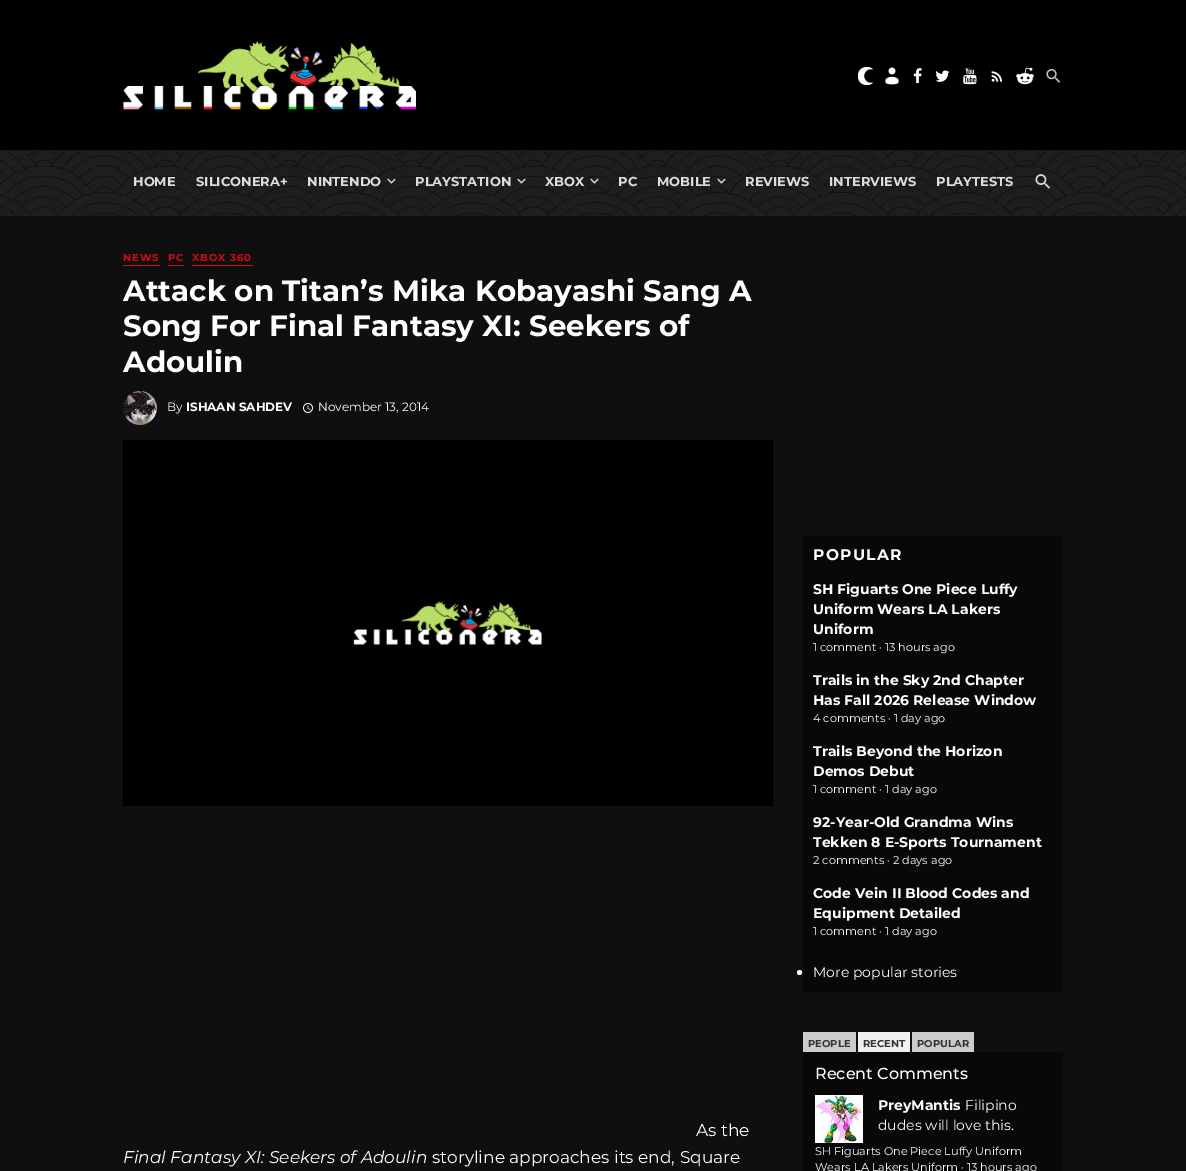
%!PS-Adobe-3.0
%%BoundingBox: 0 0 1186 1171
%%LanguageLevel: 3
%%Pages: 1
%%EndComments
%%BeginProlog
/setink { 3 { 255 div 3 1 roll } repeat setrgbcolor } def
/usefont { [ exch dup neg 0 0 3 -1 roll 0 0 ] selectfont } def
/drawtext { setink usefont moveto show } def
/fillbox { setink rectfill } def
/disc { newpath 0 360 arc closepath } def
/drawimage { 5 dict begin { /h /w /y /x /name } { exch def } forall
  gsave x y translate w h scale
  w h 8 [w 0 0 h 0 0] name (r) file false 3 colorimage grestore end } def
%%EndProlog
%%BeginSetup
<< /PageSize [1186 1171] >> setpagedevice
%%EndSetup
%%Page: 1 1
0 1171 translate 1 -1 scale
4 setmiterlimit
0 0 1186 1171 15 15 15 fillbox
0 0 1186 150 0 0 0 fillbox
(assets/img1.rgb) 123 41 293 69 drawimage
(assets/img2.rgb) 858 67 15 18 drawimage
(assets/img3.rgb) 885 67 14 18 drawimage
(assets/img4.rgb) 913 68 9 15 drawimage
(assets/img5.rgb) 935 70 15 12 drawimage
(assets/img6.rgb) 963 68 14 17 drawimage
(assets/img7.rgb) 991 71 11 11 drawimage
(assets/img8.rgb) 1016 67 18 18 drawimage
(assets/img9.rgb) 1046 69 15 14 drawimage
0 150 1186 1 26 26 26 fillbox
(assets/img10.rgb) 0 151 1186 65 drawimage
(HOME) 133 186 /Montserrat-Bold 13 221 221 221 drawtext
(SILICONERA+) 196 186 /Montserrat-Bold 13 221 221 221 drawtext
(NINTENDO) 307 186 /Montserrat-Bold 13 221 221 221 drawtext
(assets/img11.rgb) 387 178 9 6 drawimage
(PLAYSTATION) 415 186 /Montserrat-Bold 13 221 221 221 drawtext
(assets/img12.rgb) 517 178 9 6 drawimage
(XBOX) 545 186 /Montserrat-Bold 13 221 221 221 drawtext
(assets/img13.rgb) 590 178 9 6 drawimage
(PC) 618 186 /Montserrat-Bold 13 221 221 221 drawtext
(MOBILE) 657 186 /Montserrat-Bold 13 221 221 221 drawtext
(assets/img14.rgb) 717 178 9 6 drawimage
(REVIEWS) 745 186 /Montserrat-Bold 13 221 221 221 drawtext
(INTERVIEWS) 829 186 /Montserrat-Bold 13 221 221 221 drawtext
(PLAYTESTS) 936 186 /Montserrat-Bold 13 221 221 221 drawtext
(assets/img15.rgb) 1035 174 15 15 drawimage
123 265 37 1 213 9 23 fillbox
/Montserrat-Bold 10 usefont
123 261 moveto 1 0 (NEWS) ashow
168 265 16 1 213 9 23 fillbox
168 261 moveto 1 0 (PC) ashow
192 265 61 1 213 9 23 fillbox
192 261 moveto 1 0 (XBOX 360) ashow
(Attack on Titan’s Mika Kobayashi Sang A) 123 301 /Montserrat-Bold 29.4 255 255 255 drawtext
(Song For Final Fantasy XI: Seekers of) 123 336 /Montserrat-Bold 29.4 255 255 255 drawtext
(Adoulin) 123 372 /Montserrat-Bold 29.4 255 255 255 drawtext
(assets/img16.rgb) 123 391 34 34 drawimage
(By) 167 411 /Montserrat-Regular 12 255 255 255 drawtext
(ISHAAN SAHDEV) 186 411 /Montserrat-Bold 12 255 255 255 drawtext
(assets/img17.rgb) 303 403 10 10 drawimage
(November 13, 2014) 318 411 /Montserrat-Regular 12 255 255 255 drawtext
(assets/img18.rgb) 123 440 650 366 drawimage
(As the) 696 1136 /Montserrat-Regular 17 255 255 255 drawtext
(Final Fantasy XI: Seekers of Adoulin) 123 1163 /Montserrat-Italic 17 255 255 255 drawtext
(storyline approaches its end, Square) 432 1163 /Montserrat-Regular 17 255 255 255 drawtext
803 536 260 456 8 8 8 fillbox
/Montserrat-Bold 15.5 usefont
255 255 255 setink
813 560 moveto 1.25 0 (POPULAR) ashow
(SH Figuarts One Piece Luffy) 813 594 /Montserrat-Bold 14 255 255 255 drawtext
(Uniform Wears LA Lakers) 813 614 /Montserrat-Bold 14 255 255 255 drawtext
(Uniform) 813 634 /Montserrat-Bold 14 255 255 255 drawtext
(1 comment · 13 hours ago) 813 651 /Montserrat-Regular 11.25 255 255 255 drawtext
(Trails in the Sky 2nd Chapter) 813 685 /Montserrat-Bold 14 255 255 255 drawtext
(Has Fall 2026 Release Window) 813 705 /Montserrat-Bold 14 255 255 255 drawtext
(4 comments · 1 day ago) 813 722 /Montserrat-Regular 11.25 255 255 255 drawtext
(Trails Beyond the Horizon) 813 756 /Montserrat-Bold 14 255 255 255 drawtext
(Demos Debut) 813 776 /Montserrat-Bold 14 255 255 255 drawtext
(1 comment · 1 day ago) 813 793 /Montserrat-Regular 11.25 255 255 255 drawtext
(92-Year-Old Grandma Wins) 813 827 /Montserrat-Bold 14 255 255 255 drawtext
(Tekken 8 E-Sports Tournament) 813 847 /Montserrat-Bold 14 255 255 255 drawtext
(2 comments · 2 days ago) 813 864 /Montserrat-Regular 11.25 255 255 255 drawtext
(Code Vein II Blood Codes and) 813 898 /Montserrat-Bold 14 255 255 255 drawtext
(Equipment Detailed) 813 918 /Montserrat-Bold 14 255 255 255 drawtext
(1 comment · 1 day ago) 813 935 /Montserrat-Regular 11.25 255 255 255 drawtext
799.5 972.5 2.5 disc fill
(More popular stories) 813 977 /Montserrat-Regular 14 255 255 255 drawtext
803 1032 53 20 204 204 204 fillbox
(PEOPLE) 808 1047 /Montserrat-Bold 10 51 51 51 drawtext
858 1032 52 20 240 240 240 fillbox
(RECENT) 863 1047 /Montserrat-Bold 10 51 51 51 drawtext
912 1032 62 20 204 204 204 fillbox
(POPULAR) 917 1047 /Montserrat-Bold 10 51 51 51 drawtext
803 1052 260 119 8 8 8 fillbox
(Recent Comments) 815 1079 /Montserrat-Medium 16 255 255 255 drawtext
(assets/img19.rgb) 815 1095 48 48 drawimage
(PreyMantis) 878 1110 /Montserrat-Bold 14 255 255 255 drawtext
(Filipino) 965 1110 /Montserrat-Regular 14 255 255 255 drawtext
(dudes will love this.) 878 1130 /Montserrat-Regular 14 255 255 255 drawtext
(SH Figuarts One Piece Luffy Uniform) 815 1155 /Montserrat-Regular 11.25 255 255 255 drawtext
(Wears LA Lakers Uniform · 13 hours ago) 815 1171 /Montserrat-Regular 11.25 255 255 255 drawtext
showpage
%%EOF
